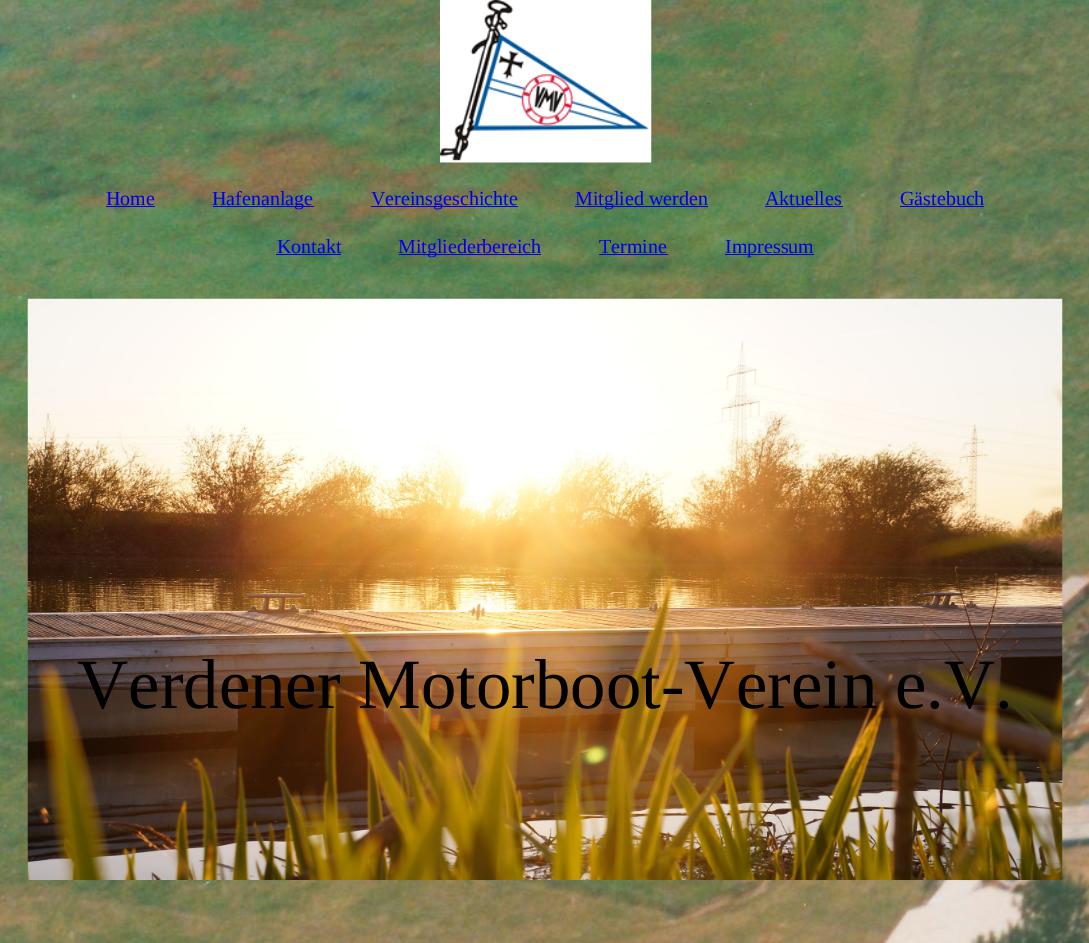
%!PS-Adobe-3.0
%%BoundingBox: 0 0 1089 943
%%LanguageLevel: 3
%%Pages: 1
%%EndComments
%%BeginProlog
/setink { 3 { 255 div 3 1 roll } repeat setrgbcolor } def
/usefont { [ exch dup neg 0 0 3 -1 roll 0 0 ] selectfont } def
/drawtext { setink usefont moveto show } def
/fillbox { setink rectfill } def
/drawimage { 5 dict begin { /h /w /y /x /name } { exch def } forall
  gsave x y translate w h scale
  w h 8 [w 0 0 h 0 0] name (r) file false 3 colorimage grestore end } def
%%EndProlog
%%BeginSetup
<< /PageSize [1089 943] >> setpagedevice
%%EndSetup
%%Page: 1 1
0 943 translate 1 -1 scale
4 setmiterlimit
0 0 1089 943 255 255 255 fillbox
(assets/img1.rgb) 0 0 1089 943 drawimage
(assets/img2.rgb) 440 0 212 163 drawimage
(Home) 106 205 /LiberationSerif-Regular 20 0 0 238 drawtext
106 206 49 1 0 0 238 fillbox
213 206 101 1 0 0 238 fillbox
(Hafenanlage) 212 205 /LiberationSerif-Regular 20 0 0 238 drawtext
371 206 147 1 0 0 238 fillbox
(Vereinsgeschichte) 371 205 /LiberationSerif-Regular 20 0 0 238 drawtext
575 206 133 1 0 0 238 fillbox
(Mitglied werden) 575 205 /LiberationSerif-Regular 20 0 0 238 drawtext
(Aktuelles) 765 205 /LiberationSerif-Regular 20 0 0 238 drawtext
765 206 78 1 0 0 238 fillbox
(Gästebuch) 900 205 /LiberationSerif-Regular 20 0 0 238 drawtext
900 206 84 1 0 0 238 fillbox
(Kontakt) 277 253 /LiberationSerif-Regular 20 0 0 238 drawtext
276 254 65 1 0 0 238 fillbox
399 254 142 1 0 0 238 fillbox
(Mitgliederbereich) 398 253 /LiberationSerif-Regular 20 0 0 238 drawtext
(Termine) 599 253 /LiberationSerif-Regular 20 0 0 238 drawtext
599 254 69 1 0 0 238 fillbox
725 254 89 1 0 0 238 fillbox
(Impressum) 725 253 /LiberationSerif-Regular 20 0 0 238 drawtext
(assets/img3.rgb) 27 298 1036 582 drawimage
(Verdener Motorboot-Verein e.V.) 77 708 /LiberationSerif-Regular 70.8 0 0 0 drawtext
showpage
%%EOF
